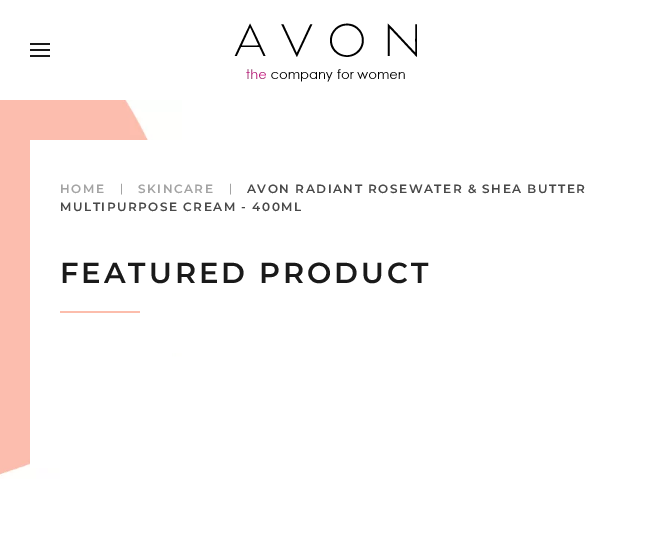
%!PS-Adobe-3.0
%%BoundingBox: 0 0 655 553
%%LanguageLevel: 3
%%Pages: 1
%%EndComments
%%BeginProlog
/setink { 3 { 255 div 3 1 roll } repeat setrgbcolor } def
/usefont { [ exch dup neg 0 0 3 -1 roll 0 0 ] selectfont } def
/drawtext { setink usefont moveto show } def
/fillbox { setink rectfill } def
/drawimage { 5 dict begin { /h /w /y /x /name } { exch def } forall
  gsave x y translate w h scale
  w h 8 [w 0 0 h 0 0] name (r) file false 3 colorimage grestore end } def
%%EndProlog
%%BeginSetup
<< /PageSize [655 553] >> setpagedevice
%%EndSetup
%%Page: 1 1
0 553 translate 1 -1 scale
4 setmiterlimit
0 0 655 553 255 255 255 fillbox
30 43 20 2 26 26 26 fillbox
30 49 20 2 26 26 26 fillbox
30 55 20 2 26 26 26 fillbox
(assets/img1.rgb) 234 23 183 59 drawimage
(assets/img2.rgb) 0 100 182 379 drawimage
30 140 152 213 255 255 255 fillbox
(|) 229 193 /Raleway-Thin 12 163 163 163 drawtext
/Montserrat-Thin 12 usefont
72 72 72 setink
247 193 moveto 1.5 0 (AVON RADIANT ROSEWATER & SHEA BUTTER) ashow
60 211 moveto 1.5 0 (MULTIPURPOSE CREAM - 400ML) ashow
163 163 163 setink
60 193 moveto 1.5 0 (HOME) ashow
(|) 120 193 /Raleway-Thin 12 163 163 163 drawtext
/Montserrat-Thin 12 usefont
138 193 moveto 1.5 0 (SKINCARE) ashow
/Montserrat-Thin 28.9 usefont
26 26 26 setink
60 283 moveto 3 0 (FEATURED PRODUCT) ashow
60 311 80 2 252 189 172 fillbox
30 353 142 115 255 255 255 fillbox
showpage
%%EOF
